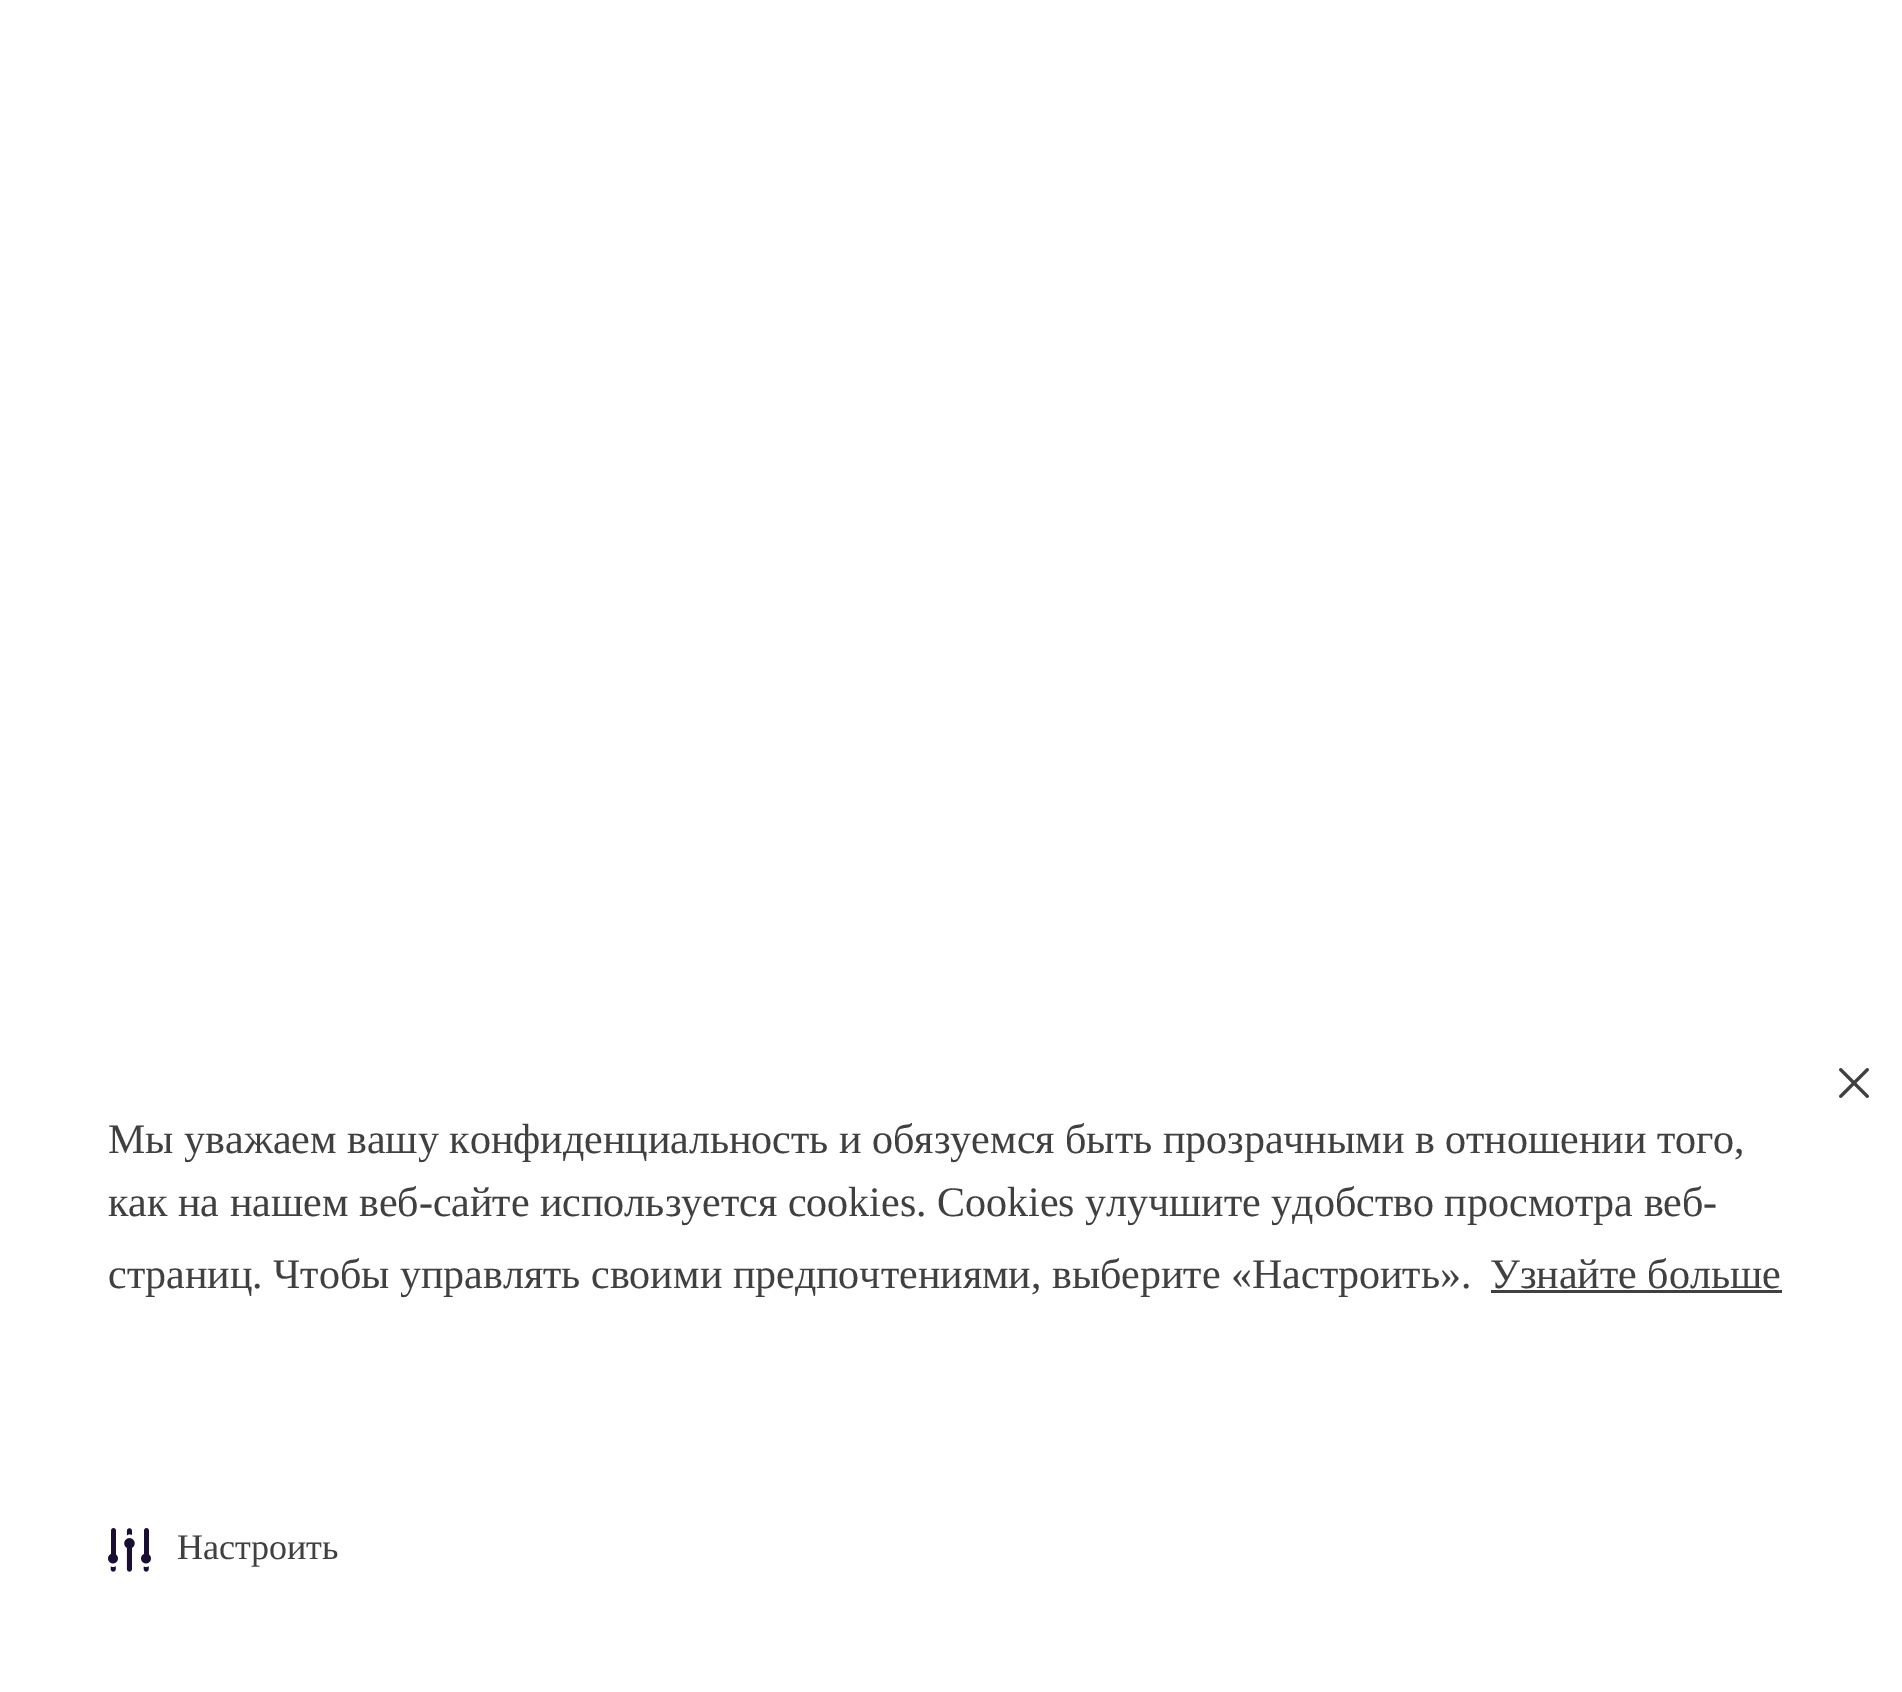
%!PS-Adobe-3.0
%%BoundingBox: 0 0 1902 1692
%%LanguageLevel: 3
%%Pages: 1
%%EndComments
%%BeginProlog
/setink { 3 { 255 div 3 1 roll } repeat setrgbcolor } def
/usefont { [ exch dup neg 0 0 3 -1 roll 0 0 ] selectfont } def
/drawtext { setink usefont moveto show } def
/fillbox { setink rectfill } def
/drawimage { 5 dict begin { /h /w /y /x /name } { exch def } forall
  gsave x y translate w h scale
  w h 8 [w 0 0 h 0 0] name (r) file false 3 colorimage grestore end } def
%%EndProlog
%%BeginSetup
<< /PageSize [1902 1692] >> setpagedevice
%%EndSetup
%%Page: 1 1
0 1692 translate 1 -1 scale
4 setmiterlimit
0 0 1902 1692 255 255 255 fillbox
(Мы уважаем вашу конфиденциальность и обязуемся быть прозрачными в отношении того,) 108 1153 /LiberationSerif-Regular 42 64 64 64 drawtext
(как на нашем веб-сайте используется cookies. Cookies улучшите удобство просмотра веб-) 108 1216 /LiberationSerif-Regular 42 64 64 64 drawtext
(страниц. Чтобы управлять своими предпочтениями, выберите «Настроить».) 108 1288 /LiberationSerif-Regular 42 64 64 64 drawtext
(Узнайте больше) 1490 1288 /LiberationSerif-Regular 42 64 64 64 drawtext
1491 1290 291 3 64 64 64 fillbox
(assets/img1.rgb) 1839 1068 30 30 drawimage
(assets/img2.rgb) 108 1528 43 44 drawimage
(Настроить) 177 1559 /LiberationSerif-Regular 36 64 64 64 drawtext
showpage
%%EOF
